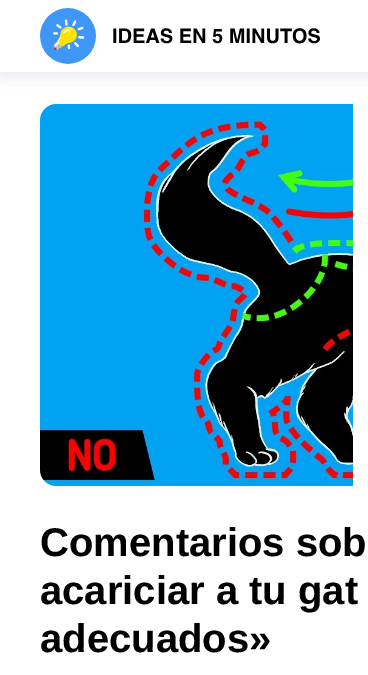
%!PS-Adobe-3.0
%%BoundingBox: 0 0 368 675
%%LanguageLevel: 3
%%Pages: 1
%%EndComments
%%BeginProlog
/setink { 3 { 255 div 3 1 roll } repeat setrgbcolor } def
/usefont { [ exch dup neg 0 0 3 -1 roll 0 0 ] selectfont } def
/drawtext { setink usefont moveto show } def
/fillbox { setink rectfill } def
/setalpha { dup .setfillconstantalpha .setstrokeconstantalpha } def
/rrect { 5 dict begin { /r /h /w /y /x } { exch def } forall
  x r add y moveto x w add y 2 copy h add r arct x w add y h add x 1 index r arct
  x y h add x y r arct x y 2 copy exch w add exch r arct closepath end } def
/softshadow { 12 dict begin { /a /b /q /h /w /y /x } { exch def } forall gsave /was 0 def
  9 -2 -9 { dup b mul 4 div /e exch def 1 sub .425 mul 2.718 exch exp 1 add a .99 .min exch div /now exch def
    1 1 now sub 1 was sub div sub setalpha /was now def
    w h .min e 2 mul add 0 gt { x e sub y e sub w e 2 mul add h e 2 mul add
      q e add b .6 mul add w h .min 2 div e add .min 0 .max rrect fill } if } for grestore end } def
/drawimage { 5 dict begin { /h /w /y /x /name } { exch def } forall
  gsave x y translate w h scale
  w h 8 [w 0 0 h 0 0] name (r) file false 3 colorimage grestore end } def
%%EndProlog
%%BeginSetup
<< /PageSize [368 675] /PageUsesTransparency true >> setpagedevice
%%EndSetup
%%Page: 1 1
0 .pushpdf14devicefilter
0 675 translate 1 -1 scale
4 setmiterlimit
0 0 368 675 255 255 255 fillbox
gsave
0 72 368 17 rectclip
205 209 218 setink
0 4 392 72 0 8 0.4 softshadow
grestore
(assets/img1.rgb) 40 8 280 56 drawimage
(assets/img2.rgb) 40 104 313 382 drawimage
(Comentarios sob) 40 556 /LiberationSans-Bold 40 0 0 0 drawtext
(acariciar a tu gat) 40 604 /LiberationSans-Bold 40 0 0 0 drawtext
(adecuados») 40 652 /LiberationSans-Bold 40 0 0 0 drawtext
.poppdf14devicefilter showpage
%%EOF
